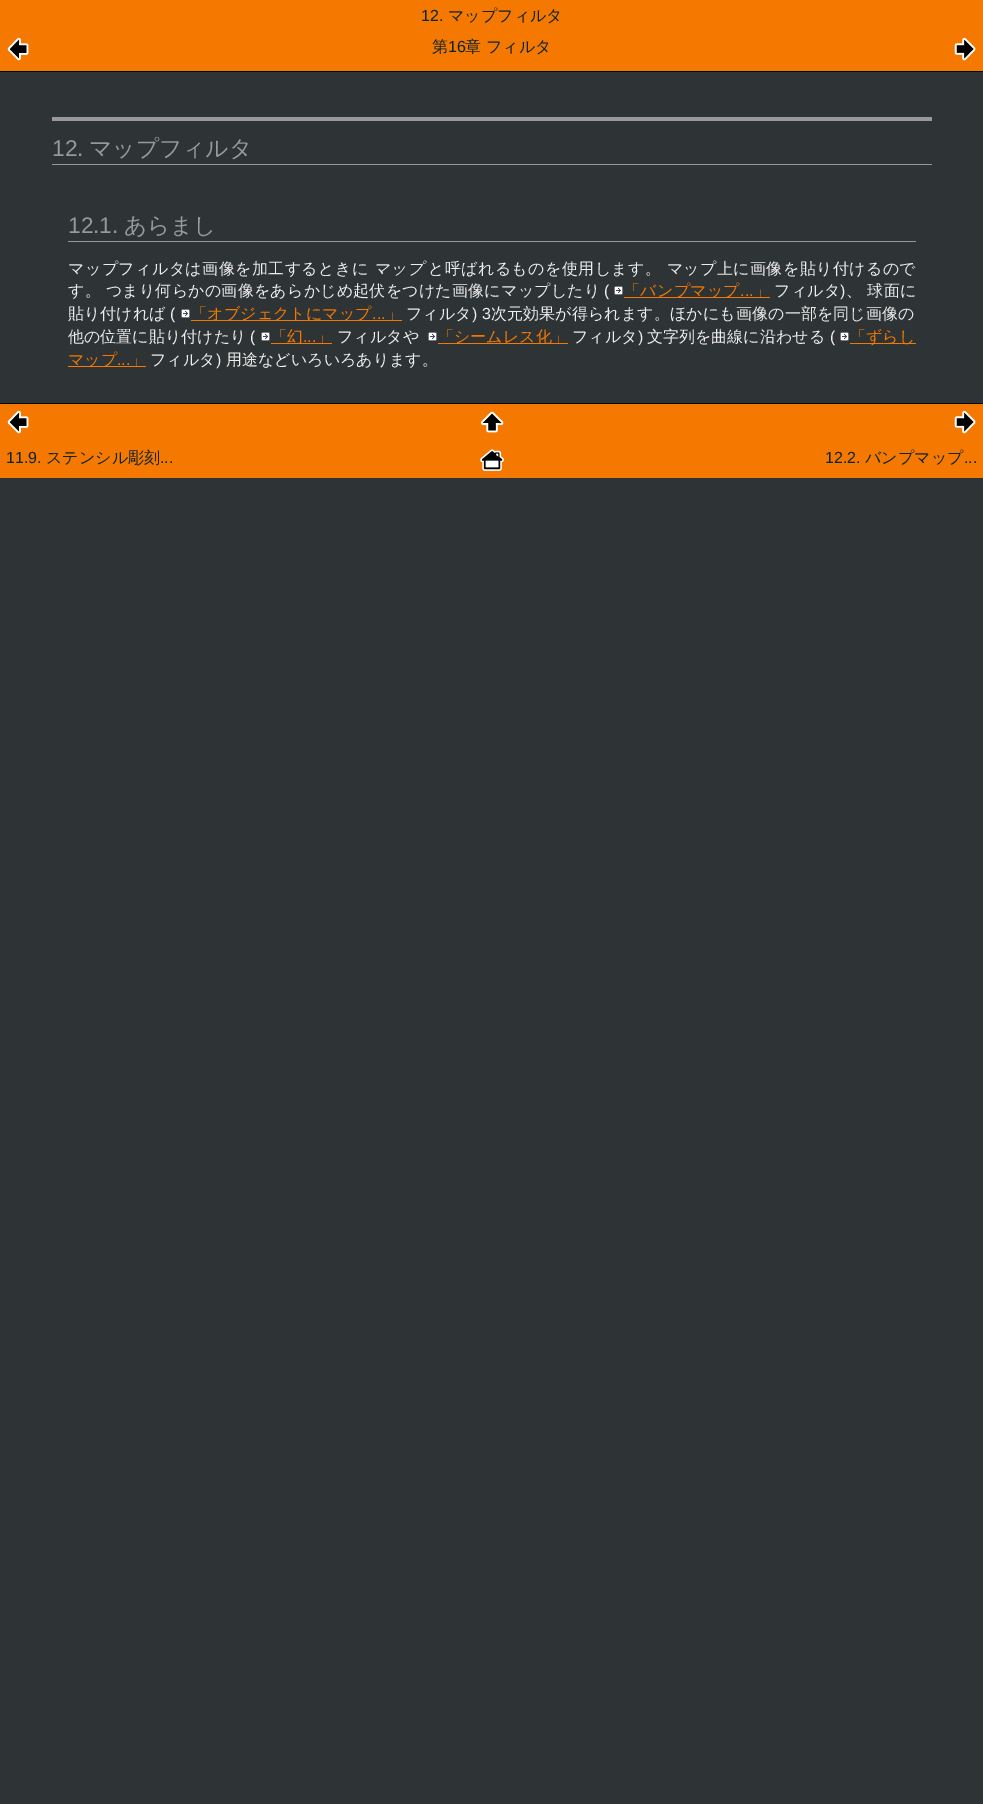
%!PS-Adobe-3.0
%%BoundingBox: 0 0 983 1804
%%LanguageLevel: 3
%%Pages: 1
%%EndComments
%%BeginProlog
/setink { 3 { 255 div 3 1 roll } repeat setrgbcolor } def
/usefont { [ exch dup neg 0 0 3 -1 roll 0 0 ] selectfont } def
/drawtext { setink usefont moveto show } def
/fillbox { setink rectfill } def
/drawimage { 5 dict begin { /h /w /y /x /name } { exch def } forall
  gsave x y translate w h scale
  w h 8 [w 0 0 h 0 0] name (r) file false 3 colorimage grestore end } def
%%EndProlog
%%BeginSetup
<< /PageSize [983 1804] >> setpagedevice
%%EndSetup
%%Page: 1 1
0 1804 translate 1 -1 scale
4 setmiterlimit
0 0 983 1804 46 52 54 fillbox
0 0 983 71 245 121 0 fillbox
0 71 983 1 0 0 0 fillbox
(12.) 421 21 /LiberationSans-Regular 16 14 36 38 drawtext
(マップフィルタ) 448 21 /WenQuanYiZenHei-Medium 16 14 36 38 drawtext
(assets/img1.rgb) 7 37 22 24 drawimage
(第) 432 52 /WenQuanYiZenHei-Medium 16 14 36 38 drawtext
(16) 448 52 /LiberationSans-Regular 16 14 36 38 drawtext
(章 フィルタ) 465 52 /WenQuanYiZenHei-Medium 16 14 36 38 drawtext
(assets/img2.rgb) 954 37 22 24 drawimage
52 117 880 4 153 153 153 fillbox
52 164 880 1 153 153 153 fillbox
(12.) 52 156 /LiberationSans-Regular 22.75 153 153 153 drawtext
(マップフィルタ) 89 156 /WenQuanYiZenHei-Medium 22.75 153 153 153 drawtext
68 241 848 1 153 153 153 fillbox
(12.1.) 68 233 /LiberationSans-Regular 22.5 153 153 153 drawtext
(あらまし) 124 233 /WenQuanYiZenHei-Medium 22.5 153 153 153 drawtext
/WenQuanYiZenHei-Medium 16 usefont
238 238 236 setink
68 274 moveto 0.4 0 (マップフィルタは画像を加工するときに) ashow
/WenQuanYiZenHei-MediumItalic 16 usefont
373 274 moveto 0.5 0 (マップ) ashow
/WenQuanYiZenHei-Medium 16 usefont
428 274 moveto 0.4 0 (と呼ばれるものを使用します。 マップ上に画像を貼り付けるので) ashow
68 296 moveto 0.2 0 (す。 つまり何らかの画像をあらかじめ起伏をつけた画像にマップしたり) ashow
/LiberationSans-Regular 16 usefont
604 296 moveto 0.2 0 (\() ashow
(assets/img3.rgb) 614 286 9 9 drawimage
624 297 146 1 245 121 0 fillbox
/WenQuanYiZenHei-Medium 16 usefont
624 296 moveto 0.25 0 (「バンプマップ) ashow
/LiberationSans-Regular 16 usefont
740 296 moveto 0.25 0 (...) ashow
/WenQuanYiZenHei-Medium 16 usefont
754 296 moveto 0.25 0 (」) ashow
238 238 236 setink
774 296 moveto 0.25 0 (フィルタ) ashow
/LiberationSans-Regular 16 usefont
840 296 moveto 0.25 0 (\)) ashow
/WenQuanYiZenHei-Medium 16 usefont
846 296 moveto 0.25 0 (、 球面に) ashow
(貼り付ければ) 68 319 /WenQuanYiZenHei-Medium 16 238 238 236 drawtext
(\() 170 319 /LiberationSans-Regular 16 238 238 236 drawtext
(assets/img3.rgb) 181 309 9 9 drawimage
191 320 211 1 245 121 0 fillbox
/WenQuanYiZenHei-Medium 16 usefont
191 319 moveto 0.1 0 (「オブジェクトにマップ) ashow
/LiberationSans-Regular 16 usefont
372 319 moveto 0.1 0 (...) ashow
/WenQuanYiZenHei-Medium 16 usefont
386 319 moveto 0.1 0 (」) ashow
238 238 236 setink
406 319 moveto 0.1 0 (フィルタ) ashow
/LiberationSans-Regular 16 usefont
472 319 moveto 0.1 0 (\) 3) ashow
/WenQuanYiZenHei-Medium 16 usefont
491 319 moveto 0.1 0 (次元効果が得られます。ほかにも画像の一部を同じ画像の) ashow
(他の位置に貼り付けたり) 68 342 /WenQuanYiZenHei-Medium 16 238 238 236 drawtext
(\() 250 342 /LiberationSans-Regular 16 238 238 236 drawtext
(assets/img3.rgb) 261 332 9 9 drawimage
271 343 61 1 245 121 0 fillbox
(「幻) 271 342 /WenQuanYiZenHei-Medium 16 245 121 0 drawtext
(...) 303 342 /LiberationSans-Regular 16 245 121 0 drawtext
(」) 316 342 /WenQuanYiZenHei-Medium 16 245 121 0 drawtext
(フィルタや) 337 342 /WenQuanYiZenHei-Medium 16 238 238 236 drawtext
(assets/img3.rgb) 428 332 9 9 drawimage
438 343 130 1 245 121 0 fillbox
(「シームレス化」) 438 342 /WenQuanYiZenHei-Medium 16 245 121 0 drawtext
(フィルタ) 572 342 /WenQuanYiZenHei-Medium 16 238 238 236 drawtext
(\)) 638 342 /LiberationSans-Regular 16 238 238 236 drawtext
(文字列を曲線に沿わせる) 647 342 /WenQuanYiZenHei-Medium 16 238 238 236 drawtext
(\() 830 342 /LiberationSans-Regular 16 238 238 236 drawtext
(assets/img3.rgb) 840 332 9 9 drawimage
850 343 66 1 245 121 0 fillbox
(「ずらし) 850 342 /WenQuanYiZenHei-Medium 16 245 121 0 drawtext
68 366 78 1 245 121 0 fillbox
(マップ) 68 365 /WenQuanYiZenHei-Medium 16 245 121 0 drawtext
(...) 117 365 /LiberationSans-Regular 16 245 121 0 drawtext
(」) 130 365 /WenQuanYiZenHei-Medium 16 245 121 0 drawtext
(フィルタ) 150 365 /WenQuanYiZenHei-Medium 16 238 238 236 drawtext
(\)) 216 365 /LiberationSans-Regular 16 238 238 236 drawtext
(用途などいろいろあります。) 226 365 /WenQuanYiZenHei-Medium 16 238 238 236 drawtext
0 404 983 74 245 121 0 fillbox
0 403 983 1 0 0 0 fillbox
(assets/img1.rgb) 7 410 22 24 drawimage
(assets/img4.rgb) 480 411 24 22 drawimage
(assets/img2.rgb) 954 410 22 24 drawimage
(11.9.) 6 463 /LiberationSans-Regular 16 14 36 38 drawtext
(ステンシル彫刻) 46 463 /WenQuanYiZenHei-Medium 16 14 36 38 drawtext
(...) 160 463 /LiberationSans-Regular 16 14 36 38 drawtext
(assets/img5.rgb) 480 449 24 22 drawimage
(12.2.) 825 463 /LiberationSans-Regular 16 14 36 38 drawtext
(バンプマップ) 865 463 /WenQuanYiZenHei-Medium 16 14 36 38 drawtext
(...) 964 463 /LiberationSans-Regular 16 14 36 38 drawtext
showpage
%%EOF
